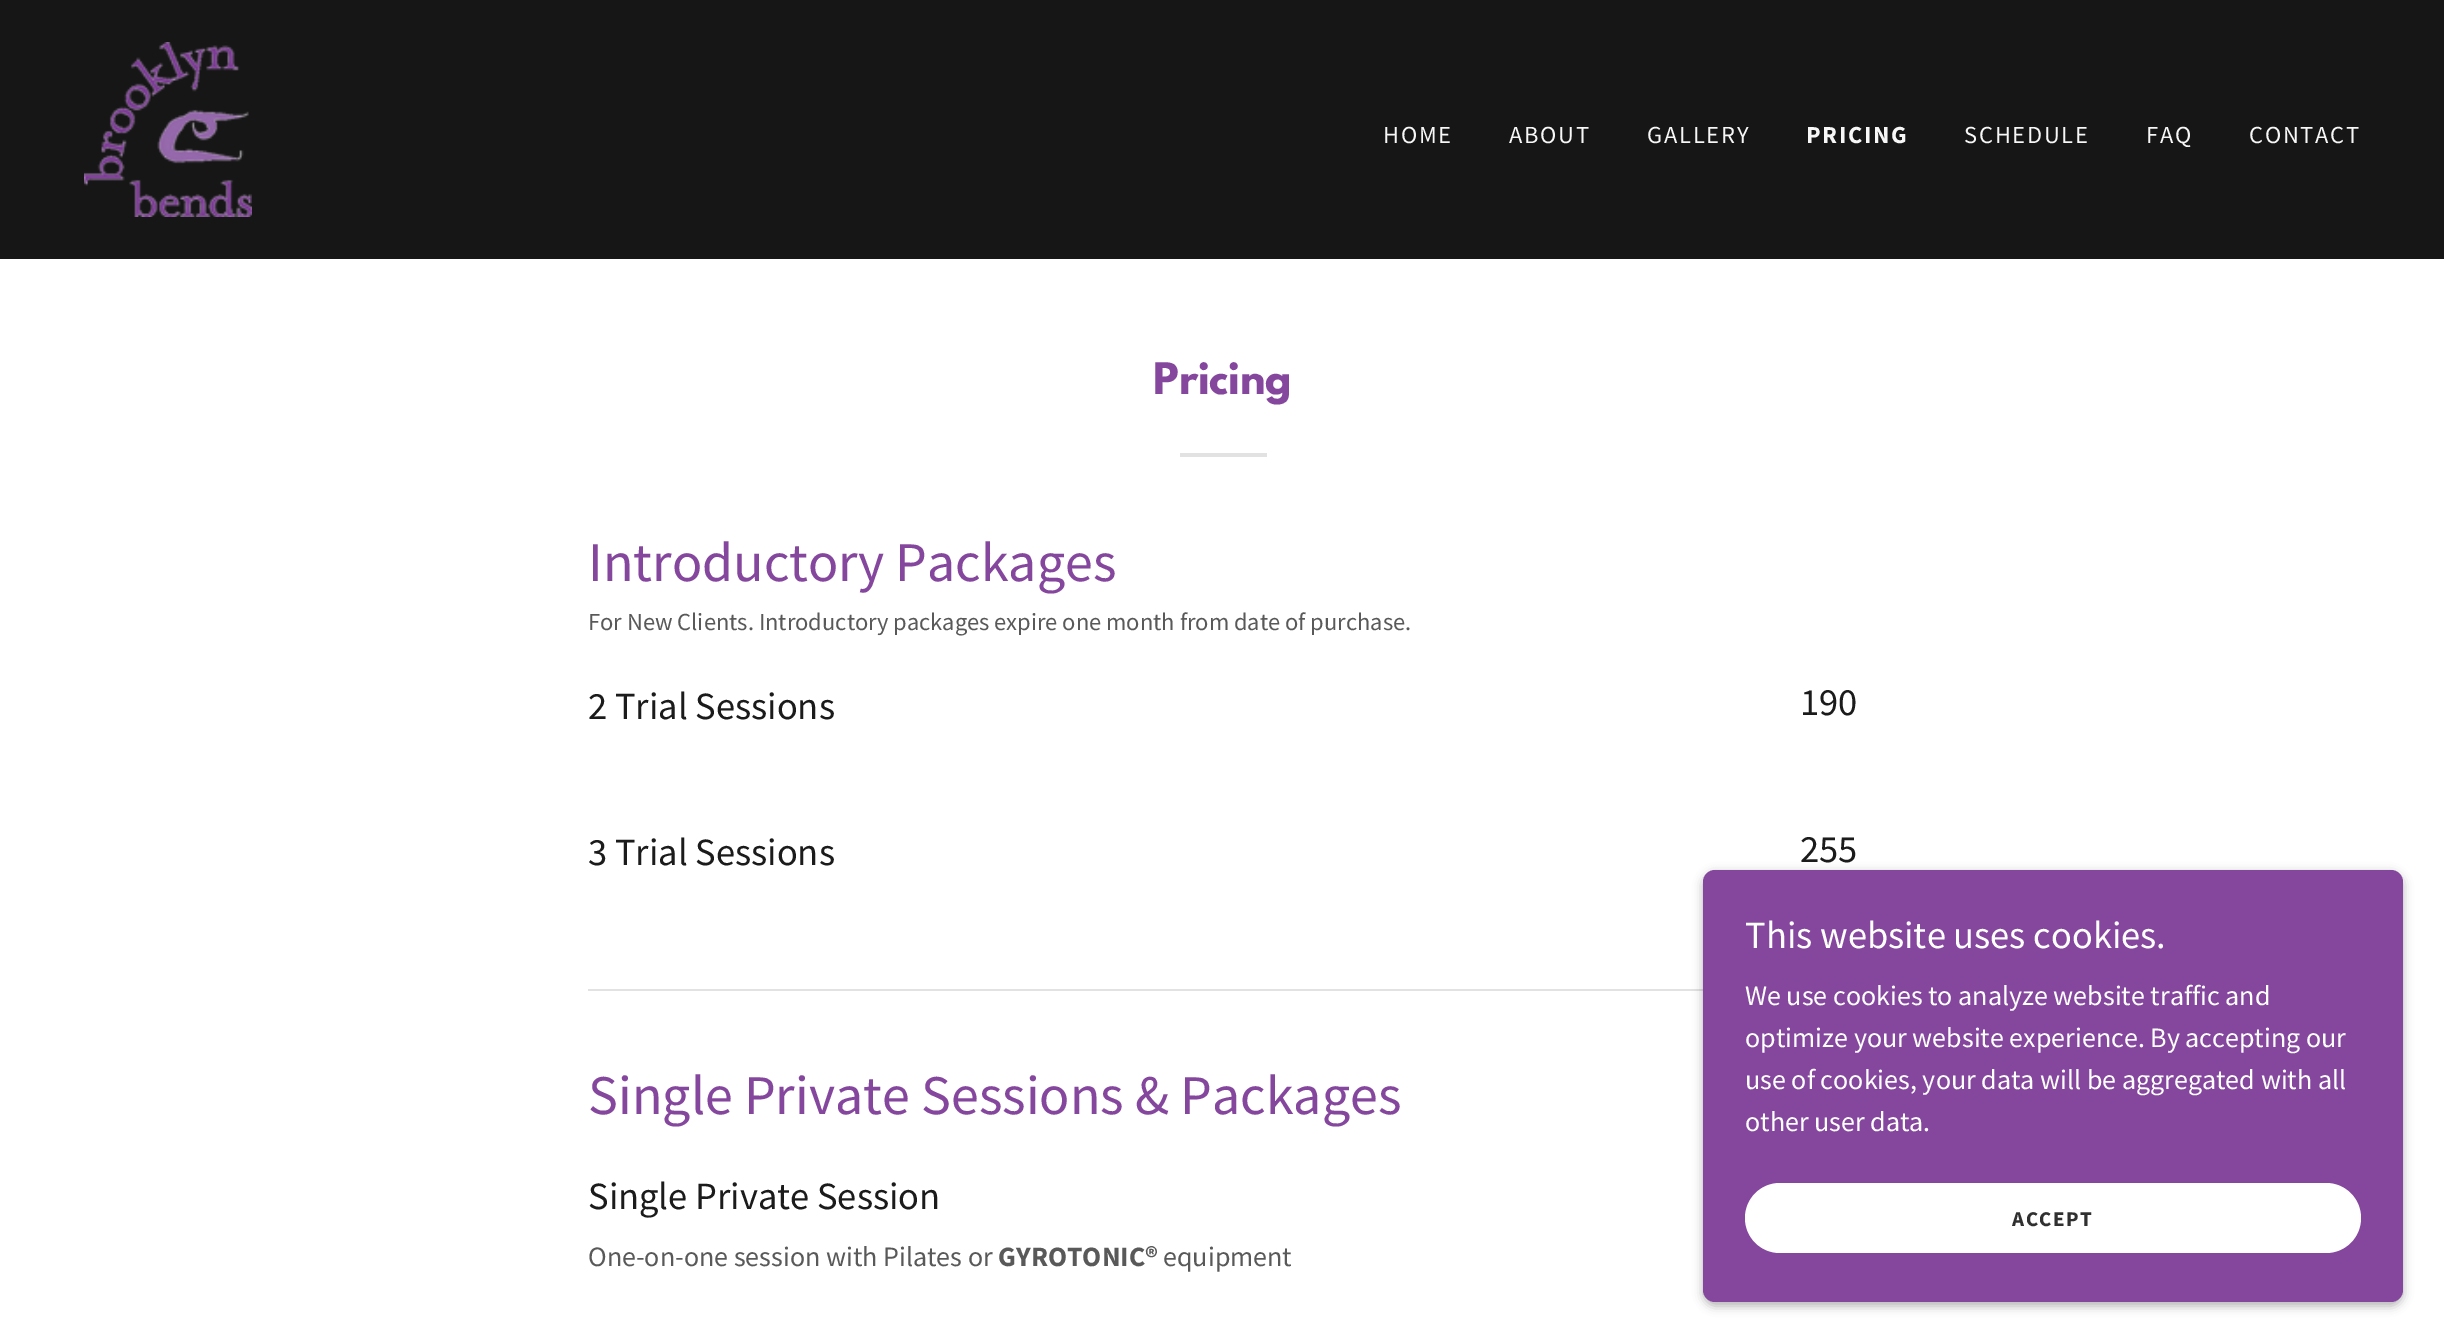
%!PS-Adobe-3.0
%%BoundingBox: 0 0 2444 1344
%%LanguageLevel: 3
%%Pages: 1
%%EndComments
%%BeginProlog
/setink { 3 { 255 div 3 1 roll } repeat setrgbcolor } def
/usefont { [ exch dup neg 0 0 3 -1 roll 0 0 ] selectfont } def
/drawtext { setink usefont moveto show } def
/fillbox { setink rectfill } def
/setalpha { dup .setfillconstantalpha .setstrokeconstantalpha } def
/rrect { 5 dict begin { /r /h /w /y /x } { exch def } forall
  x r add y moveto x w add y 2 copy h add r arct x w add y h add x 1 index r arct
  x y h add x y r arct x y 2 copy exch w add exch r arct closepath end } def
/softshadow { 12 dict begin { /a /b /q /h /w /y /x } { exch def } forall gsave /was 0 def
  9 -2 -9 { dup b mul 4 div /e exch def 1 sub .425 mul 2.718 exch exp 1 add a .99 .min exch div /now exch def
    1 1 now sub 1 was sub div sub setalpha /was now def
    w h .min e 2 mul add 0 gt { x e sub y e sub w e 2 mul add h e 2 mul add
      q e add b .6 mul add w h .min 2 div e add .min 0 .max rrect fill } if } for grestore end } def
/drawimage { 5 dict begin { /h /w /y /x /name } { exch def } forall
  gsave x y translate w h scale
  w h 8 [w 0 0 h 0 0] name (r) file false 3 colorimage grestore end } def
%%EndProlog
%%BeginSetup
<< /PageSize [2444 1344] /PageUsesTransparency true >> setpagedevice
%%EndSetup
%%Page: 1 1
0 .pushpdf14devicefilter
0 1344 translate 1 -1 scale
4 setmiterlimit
0 0 2444 1344 22 22 22 fillbox
(assets/img1.rgb) 84 42 168 175 drawimage
/SourceSansPro-Regular 24.5 usefont
247 247 247 setink
1383 143 moveto 1.75 0 (HOME) ashow
1509 143 moveto 1.75 0 (ABOUT) ashow
1647 143 moveto 1.75 0 (GALLERY) ashow
/SourceSansPro-Bold 24.5 usefont
1806 143 moveto 1.75 0 (PRICING) ashow
/SourceSansPro-Regular 24.5 usefont
1964 143 moveto 1.75 0 (SCHEDULE) ashow
2146 143 moveto 1.75 0 (FAQ) ashow
2249 143 moveto 1.75 0 (CONTACT) ashow
0 259 2444 1085 255 255 255 fillbox
(Pricing) 1153 394 /LeagueSpartan-Bold 38.5 133 71 157 drawtext
1180 453 87 4 226 226 226 fillbox
(Introductory Packages) 588 581 /SourceSansPro-Regular 56 133 71 157 drawtext
(For New Clients. Introductory packages expire one month from date of purchase.) 588 630 /SourceSansPro-Regular 24.5 89 89 89 drawtext
(2 Trial Sessions) 588 719 /SourceSansPro-Regular 38.5 27 27 27 drawtext
(190) 1800 715 /SourceSansPro-Regular 38.5 27 27 27 drawtext
(3 Trial Sessions) 588 865 /SourceSansPro-Regular 38.5 27 27 27 drawtext
(255) 1800 862 /SourceSansPro-Regular 38.5 27 27 27 drawtext
588 989 1115 2 226 226 226 fillbox
(Single Private Sessions & Packages) 588 1114 /SourceSansPro-Regular 56 133 71 157 drawtext
(Single Private Session) 588 1209 /SourceSansPro-Regular 38.5 27 27 27 drawtext
(One-on-one session with Pilates or) 588 1266 /SourceSansPro-Regular 28 89 89 89 drawtext
(GYROTONIC®) 998 1266 /SourceSansPro-Bold 28 89 89 89 drawtext
(equipment) 1163 1266 /SourceSansPro-Regular 28 89 89 89 drawtext
0 0 0 setink
1703 873 700 433 12 5 0.3 softshadow
133 71 157 setink
1703 870 700 432 12 rrect fill
(This website uses cookies.) 1745 948 /SourceSansPro-Regular 38.5 255 255 255 drawtext
(We use cookies to analyze website traffic and) 1745 1005 /SourceSansPro-Regular 28 255 255 255 drawtext
(optimize your website experience. By accepting our) 1745 1047 /SourceSansPro-Regular 28 255 255 255 drawtext
(use of cookies, your data will be aggregated with all) 1745 1089 /SourceSansPro-Regular 28 255 255 255 drawtext
(other user data.) 1745 1131 /SourceSansPro-Regular 28 255 255 255 drawtext
1745 1183 616 70 35 rrect fill
/SourceSansPro-Bold 21 usefont
48 48 48 setink
2012 1226 moveto 1.5 0 (ACCEPT) ashow
.poppdf14devicefilter showpage
%%EOF
